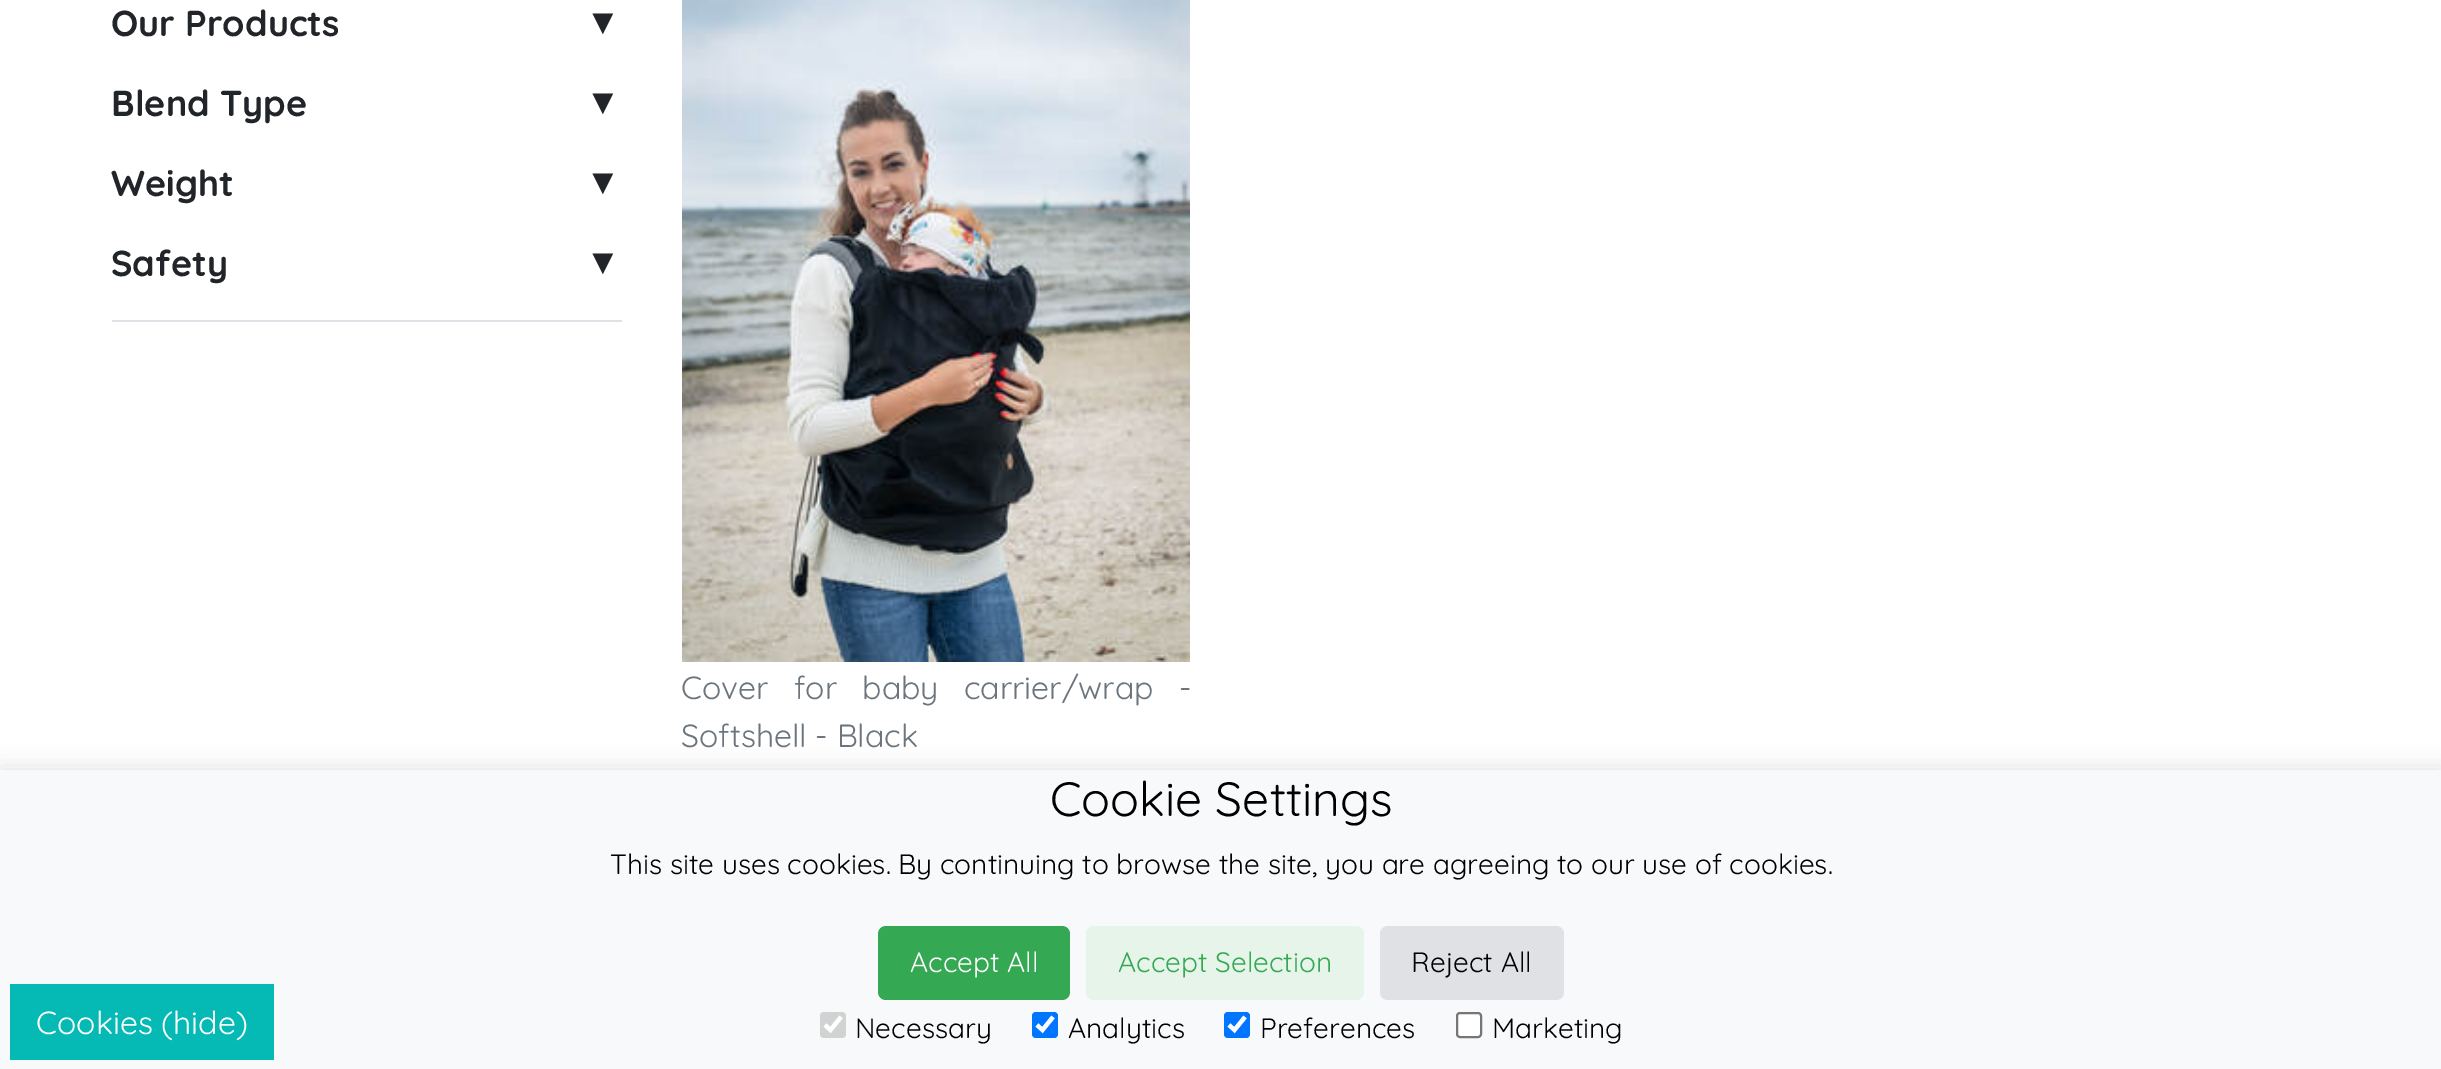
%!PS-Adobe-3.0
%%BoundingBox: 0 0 2441 1069
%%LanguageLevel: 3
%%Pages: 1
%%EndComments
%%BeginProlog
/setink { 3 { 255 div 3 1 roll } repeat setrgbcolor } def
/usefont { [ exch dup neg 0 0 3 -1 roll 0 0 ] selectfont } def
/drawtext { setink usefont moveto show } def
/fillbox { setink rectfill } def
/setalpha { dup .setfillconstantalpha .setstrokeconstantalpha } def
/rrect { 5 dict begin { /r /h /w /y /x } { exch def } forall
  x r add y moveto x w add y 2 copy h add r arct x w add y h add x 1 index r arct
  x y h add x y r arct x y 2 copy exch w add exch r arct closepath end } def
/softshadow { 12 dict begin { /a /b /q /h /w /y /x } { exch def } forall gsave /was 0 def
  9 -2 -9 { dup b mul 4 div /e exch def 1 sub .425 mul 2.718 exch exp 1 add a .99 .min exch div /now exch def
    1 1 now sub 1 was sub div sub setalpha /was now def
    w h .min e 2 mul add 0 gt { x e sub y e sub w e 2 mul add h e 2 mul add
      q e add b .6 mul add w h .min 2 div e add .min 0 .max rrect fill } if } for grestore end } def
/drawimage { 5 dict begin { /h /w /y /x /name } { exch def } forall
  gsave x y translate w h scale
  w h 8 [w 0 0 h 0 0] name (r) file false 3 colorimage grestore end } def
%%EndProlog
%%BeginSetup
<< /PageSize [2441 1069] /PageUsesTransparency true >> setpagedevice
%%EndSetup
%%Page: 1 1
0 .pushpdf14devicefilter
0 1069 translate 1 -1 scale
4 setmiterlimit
0 0 2441 1069 255 255 255 fillbox
112 320 510 2 222 226 230 fillbox
(Our Products) 111 36 /Quicksand-Bold 36 33 37 41 drawtext
(▼) 585 34 /LiberationSans-Bold 36 33 37 41 drawtext
(Blend Type) 111 116 /Quicksand-Bold 36 33 37 41 drawtext
(▼) 585 114 /LiberationSans-Bold 36 33 37 41 drawtext
(Weight) 111 196 /Quicksand-Bold 36 33 37 41 drawtext
(▼) 585 194 /LiberationSans-Bold 36 33 37 41 drawtext
(Safety) 111 276 /Quicksand-Bold 36 33 37 41 drawtext
(▼) 585 274 /LiberationSans-Bold 36 33 37 41 drawtext
(assets/img1.rgb) 682 0 508 662 drawimage
/Quicksand-Regular 32 usefont
108 117 125 setink
681 699 moveto 16.5 0 32 (Cover for baby carrier/wrap -) widthshow
(Softshell - Black) 681 747 /Quicksand-Regular 32 108 117 125 drawtext
0 0 0 setink
0 766 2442 300 0 10 0.1 softshadow
0 770 2441 299 248 249 250 fillbox
10 984 264 76 5 186 180 fillbox
(Cookies \(hide\)) 36 1034 /Quicksand-Regular 32 255 255 255 drawtext
(Cookie Settings) 1050 816 /Quicksand-Regular 48 0 0 0 drawtext
(This site uses cookies. By continuing to browse the site, you are agreeing to our use of cookies.) 610 874 /Quicksand-Regular 28 0 0 0 drawtext
52 168 83 setink
878 926 192 74 8 rrect fill
(Accept All) 910 972 /Quicksand-Regular 28 255 255 255 drawtext
230 244 234 setink
1086 926 278 74 8 rrect fill
(Accept Selection) 1118 972 /Quicksand-Regular 28 52 168 83 drawtext
223 225 229 setink
1380 926 184 74 8 rrect fill
(Reject All) 1411 972 /Quicksand-Regular 28 0 0 0 drawtext
209 210 210 setink
820 1012 26 26 4 rrect fill
255 255 255 setink
4.2 setlinewidth
825 1025 moveto 830.5 1030 lineto 841 1017 lineto stroke
(Necessary) 855 1038 /Quicksand-Regular 28 0 0 0 drawtext
0 117 255 setink
1032 1012 26 26 4 rrect fill
255 255 255 setink
1037 1025 moveto 1042.5 1030 lineto 1053 1017 lineto stroke
(Analytics) 1068 1038 /Quicksand-Regular 28 0 0 0 drawtext
0 117 255 setink
1224 1012 26 26 4 rrect fill
255 255 255 setink
1229 1025 moveto 1234.5 1030 lineto 1245 1017 lineto stroke
(Preferences) 1260 1038 /Quicksand-Regular 28 0 0 0 drawtext
255 255 255 setink
1457 1013 24 24 3 rrect gsave fill grestore
118 118 118 setink
2 setlinewidth
stroke
(Marketing) 1492 1038 /Quicksand-Regular 28 0 0 0 drawtext
.poppdf14devicefilter showpage
%%EOF
